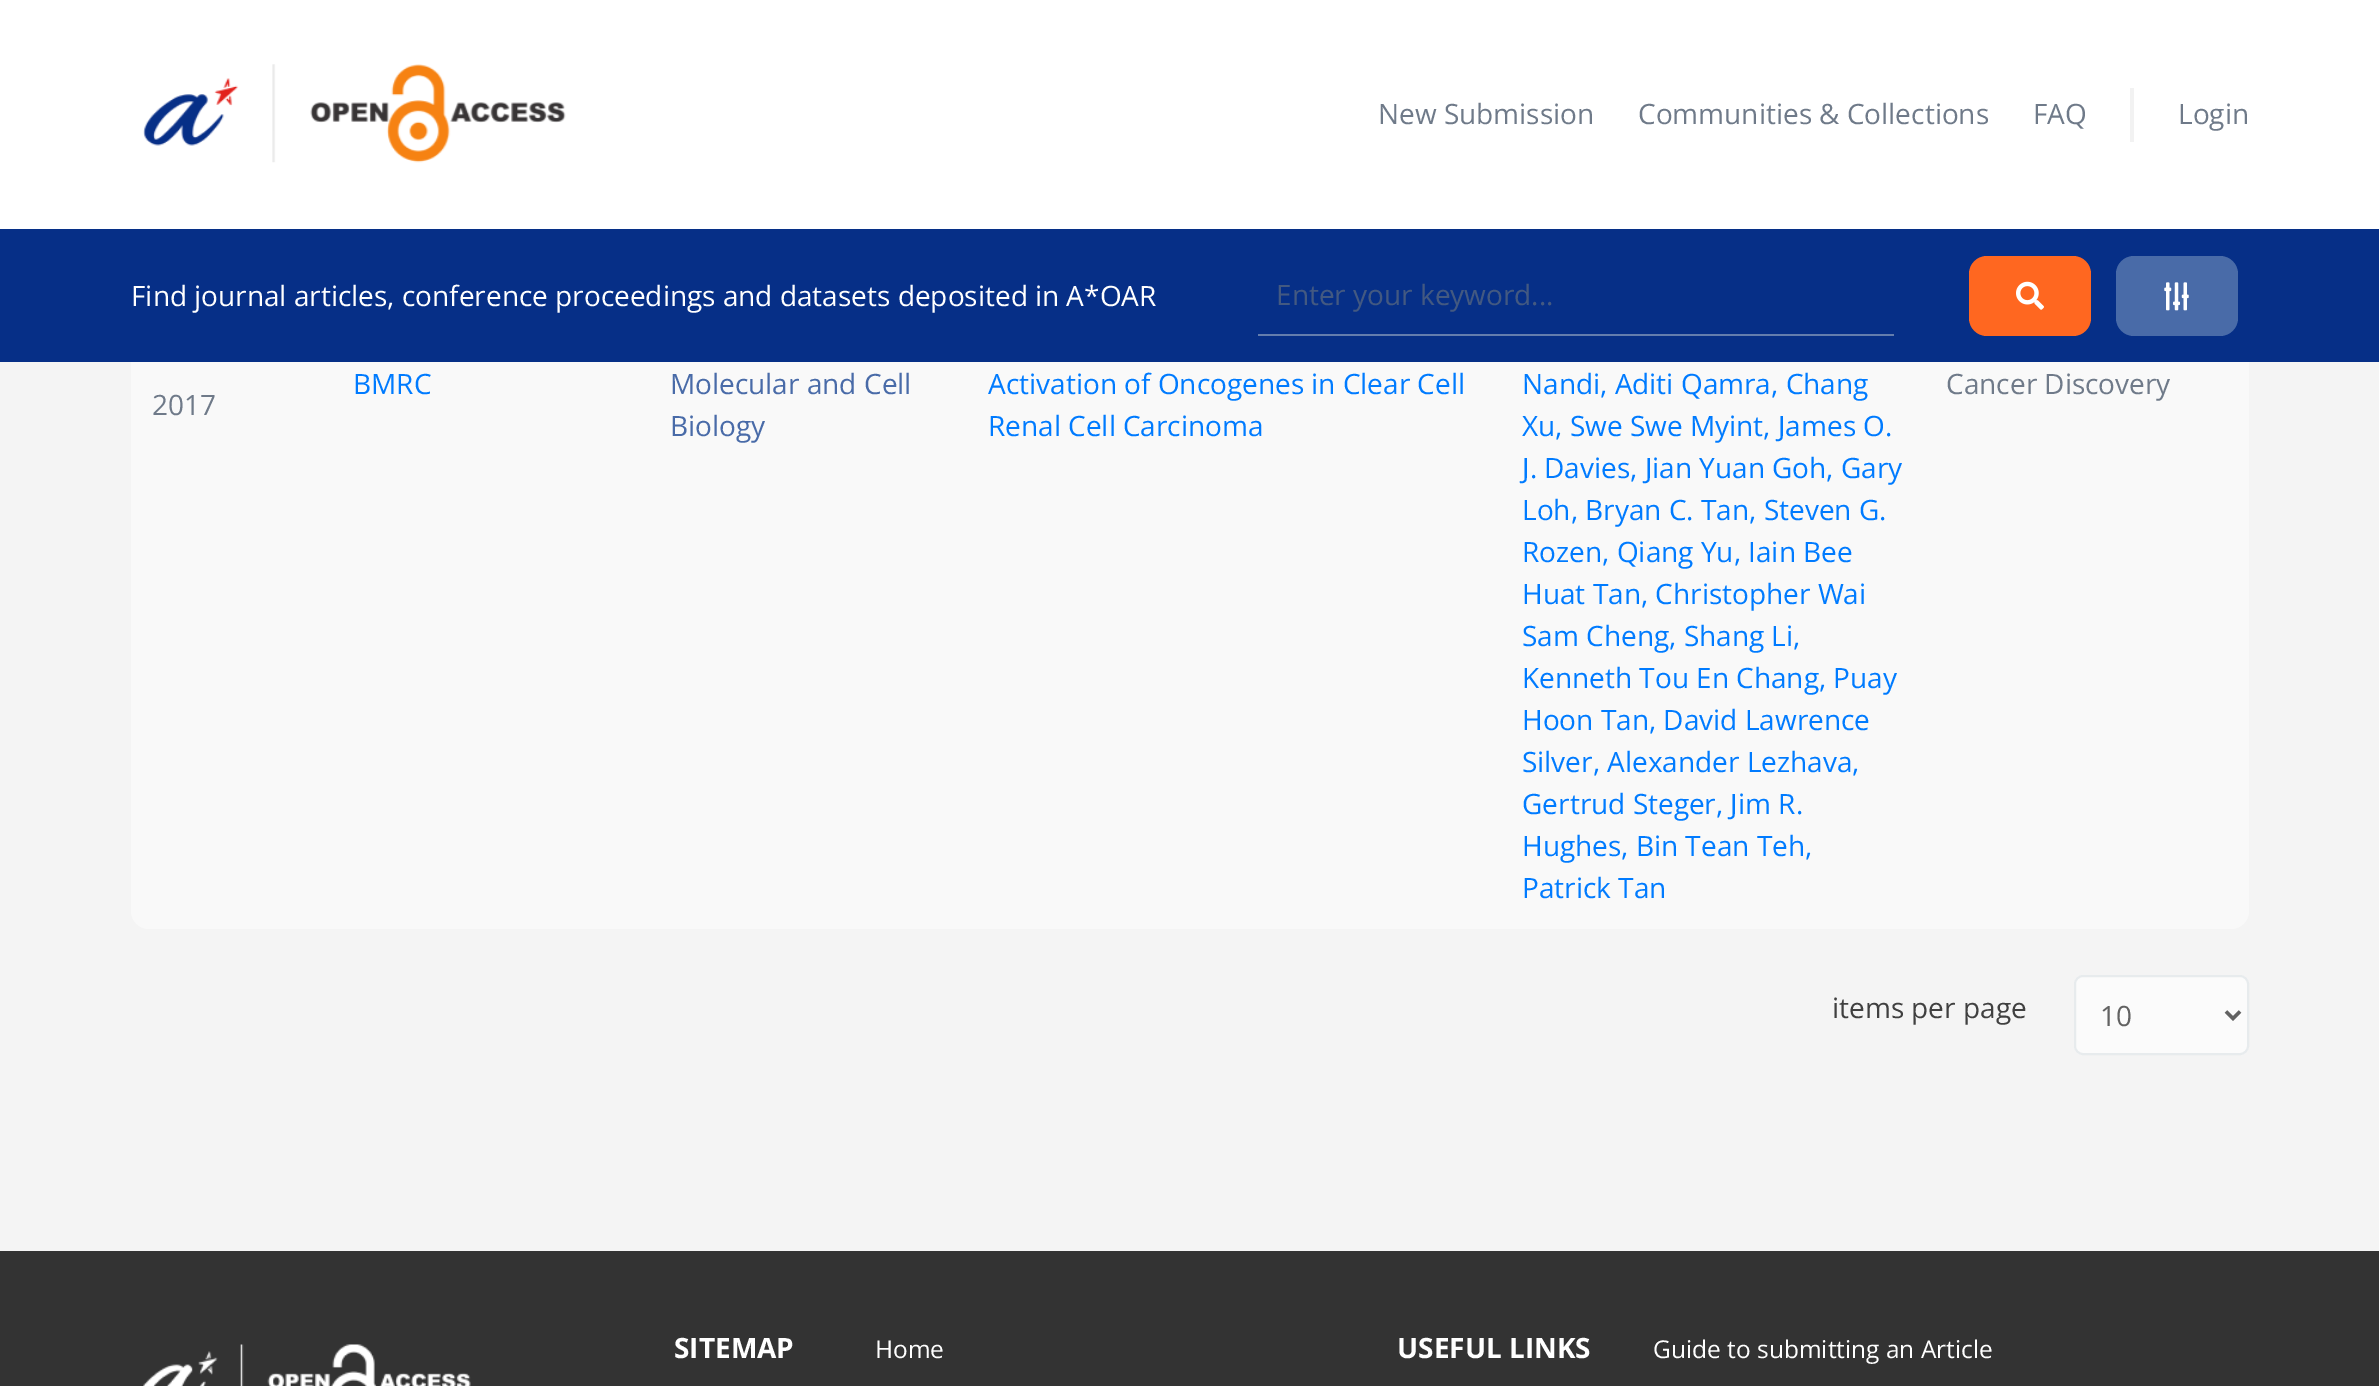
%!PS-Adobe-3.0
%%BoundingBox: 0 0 2379 1386
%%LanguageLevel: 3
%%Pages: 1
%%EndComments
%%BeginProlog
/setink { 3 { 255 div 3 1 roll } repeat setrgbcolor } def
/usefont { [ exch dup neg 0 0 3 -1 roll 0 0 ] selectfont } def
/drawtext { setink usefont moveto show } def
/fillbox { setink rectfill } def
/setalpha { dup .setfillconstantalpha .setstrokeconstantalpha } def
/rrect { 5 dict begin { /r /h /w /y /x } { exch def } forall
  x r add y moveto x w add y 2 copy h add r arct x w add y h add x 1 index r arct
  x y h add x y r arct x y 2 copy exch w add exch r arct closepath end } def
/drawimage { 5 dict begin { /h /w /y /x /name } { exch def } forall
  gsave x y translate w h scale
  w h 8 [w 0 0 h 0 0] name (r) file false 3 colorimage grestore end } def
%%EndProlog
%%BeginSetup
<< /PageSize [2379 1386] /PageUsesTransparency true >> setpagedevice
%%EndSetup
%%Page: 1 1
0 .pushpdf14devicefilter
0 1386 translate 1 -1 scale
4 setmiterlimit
0 0 2379 1386 244 244 244 fillbox
249 249 249 setink
131 -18 2118 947 18 rrect fill
0 0 2379 229 255 255 255 fillbox
(assets/img1.rgb) 143 64 423 99 drawimage
(New Submission) 1378 124 /OpenSans-Regular 28 111 122 137 drawtext
(Communities & Collections) 1638 124 /OpenSans-Regular 28 111 122 137 drawtext
(FAQ) 2033 124 /OpenSans-Regular 28 111 122 137 drawtext
2130 88 4 54 242 242 242 fillbox
(Login) 2178 124 /OpenSans-Regular 28 111 122 137 drawtext
0 229 2379 133 6 47 135 fillbox
(Find journal articles, conference proceedings and datasets deposited in A*OAR) 131 306 /OpenSans-Regular 28 255 255 255 drawtext
1258 334 636 2 99 125 173 fillbox
(Enter your keyword...) 1276 305 /OpenSans-Regular 28 67 89 129 drawtext
255 103 32 setink
1969 256 122 80 18 rrect fill
(assets/img2.rgb) 2016 281 28 29 drawimage
73 107 168 setink
2116 256 122 80 18 rrect fill
(assets/img3.rgb) 2164 282 25 29 drawimage
(BMRC) 353 394 /OpenSans-Regular 28 0 123 255 drawtext
(Molecular and Cell) 670 394 /OpenSans-Regular 28 73 107 168 drawtext
(Biology) 670 436 /OpenSans-Regular 28 73 107 168 drawtext
(Activation of Oncogenes in Clear Cell) 988 394 /OpenSans-Regular 28 0 123 255 drawtext
(Renal Cell Carcinoma) 988 436 /OpenSans-Regular 28 0 123 255 drawtext
(Nandi, Aditi Qamra, Chang) 1522 394 /OpenSans-Regular 28 0 123 255 drawtext
(Xu, Swe Swe Myint, James O.) 1522 436 /OpenSans-Regular 28 0 123 255 drawtext
(J. Davies, Jian Yuan Goh, Gary) 1522 478 /OpenSans-Regular 28 0 123 255 drawtext
(Loh, Bryan C. Tan, Steven G.) 1522 520 /OpenSans-Regular 28 0 123 255 drawtext
(Rozen, Qiang Yu, Iain Bee) 1522 562 /OpenSans-Regular 28 0 123 255 drawtext
(Huat Tan, Christopher Wai) 1522 604 /OpenSans-Regular 28 0 123 255 drawtext
(Sam Cheng, Shang Li,) 1522 646 /OpenSans-Regular 28 0 123 255 drawtext
(Kenneth Tou En Chang, Puay) 1522 688 /OpenSans-Regular 28 0 123 255 drawtext
(Hoon Tan, David Lawrence) 1522 730 /OpenSans-Regular 28 0 123 255 drawtext
(Silver, Alexander Lezhava,) 1522 772 /OpenSans-Regular 28 0 123 255 drawtext
(Gertrud Steger, Jim R.) 1522 814 /OpenSans-Regular 28 0 123 255 drawtext
(Hughes, Bin Tean Teh,) 1522 856 /OpenSans-Regular 28 0 123 255 drawtext
(Patrick Tan) 1522 898 /OpenSans-Regular 28 0 123 255 drawtext
(Cancer Discovery) 1946 394 /OpenSans-Regular 28 111 122 137 drawtext
(2017) 152 415 /OpenSans-Regular 28 111 122 137 drawtext
(items per page) 1832 1018 /OpenSans-Regular 28 64 64 64 drawtext
251 251 251 setink
2074 975 175 80 9 rrect fill
0.5 setalpha
212 219 224 setink
2 setlinewidth
2075 976 173 78 8 rrect stroke
1 setalpha
98 98 98 setink
3.5 setlinewidth
2226 1011.5 moveto 2233 1018.5 lineto 2240 1011.5 lineto stroke
(10) 2100 1026 /OpenSans-Regular 28 98 98 98 drawtext
0 1251 2379 135 51 51 51 fillbox
(assets/img4.rgb) 143 1344 328 42 drawimage
(SITEMAP) 674 1358 /OpenSans-Bold 28 255 255 255 drawtext
(Home) 875 1358 /OpenSans-Regular 24.5 255 255 255 drawtext
(USEFUL LINKS) 1397 1358 /OpenSans-Bold 28 255 255 255 drawtext
(Guide to submitting an Article) 1653 1358 /OpenSans-Regular 24.5 255 255 255 drawtext
.poppdf14devicefilter showpage
%%EOF
